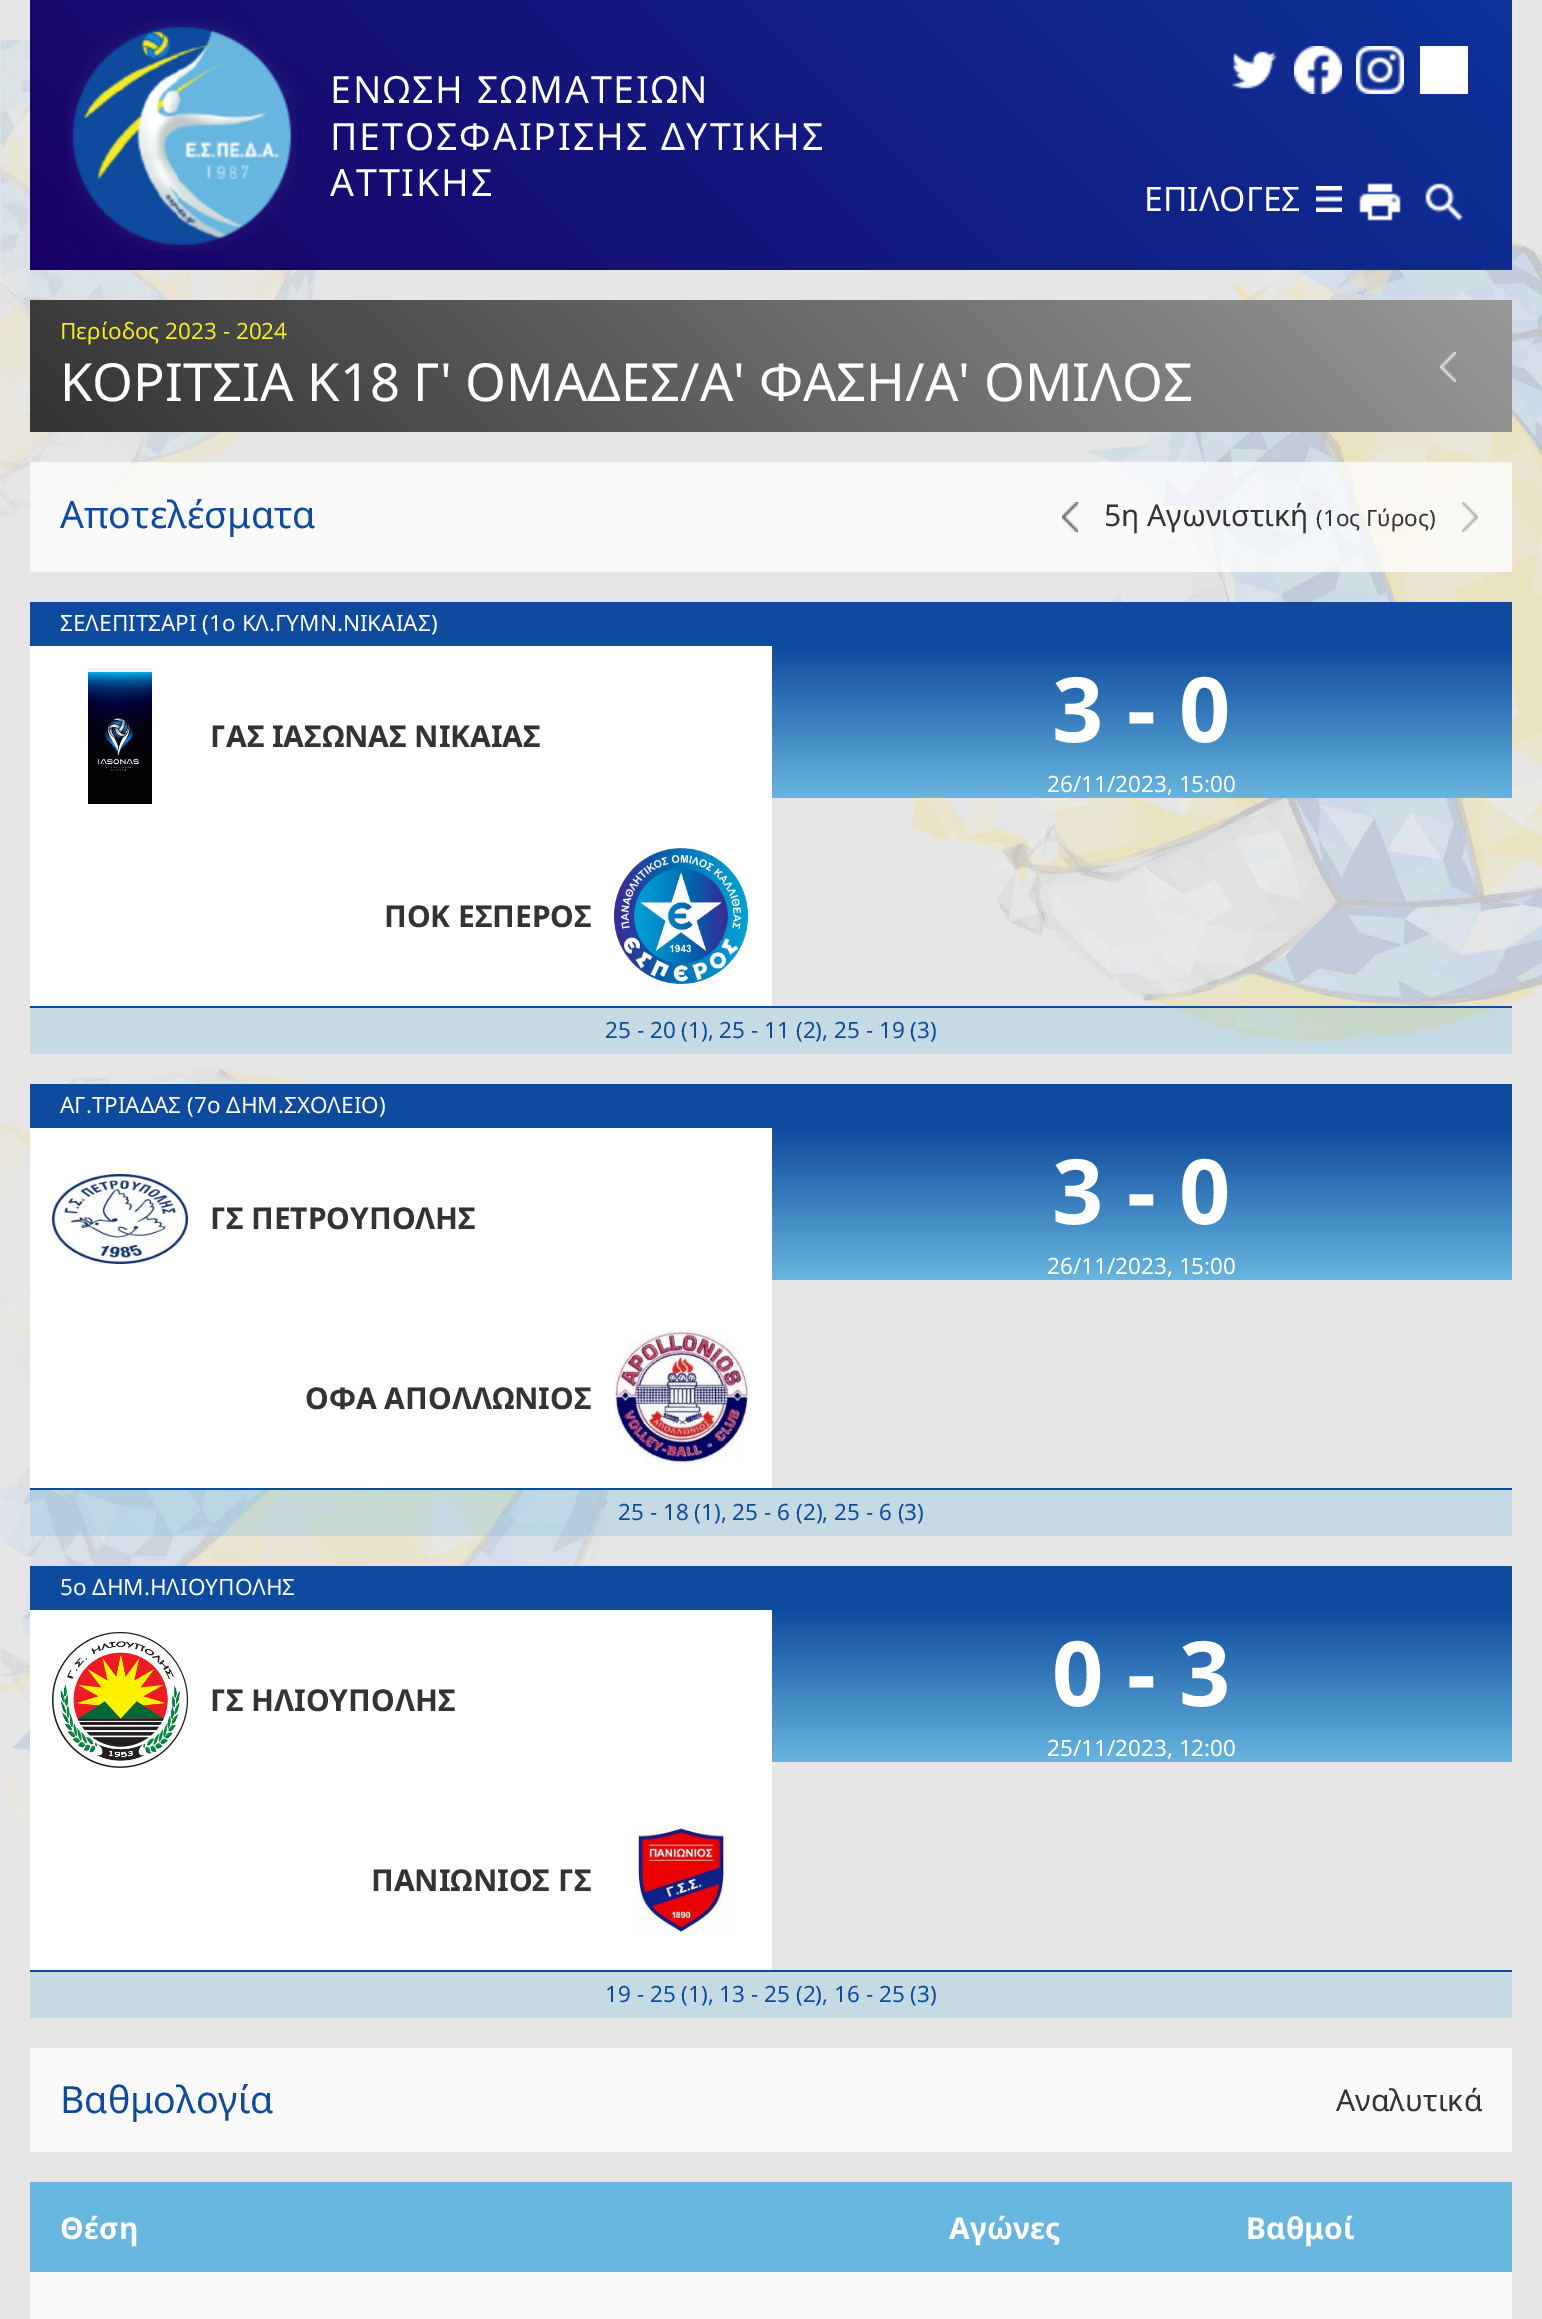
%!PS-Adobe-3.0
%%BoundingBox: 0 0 1542 2319
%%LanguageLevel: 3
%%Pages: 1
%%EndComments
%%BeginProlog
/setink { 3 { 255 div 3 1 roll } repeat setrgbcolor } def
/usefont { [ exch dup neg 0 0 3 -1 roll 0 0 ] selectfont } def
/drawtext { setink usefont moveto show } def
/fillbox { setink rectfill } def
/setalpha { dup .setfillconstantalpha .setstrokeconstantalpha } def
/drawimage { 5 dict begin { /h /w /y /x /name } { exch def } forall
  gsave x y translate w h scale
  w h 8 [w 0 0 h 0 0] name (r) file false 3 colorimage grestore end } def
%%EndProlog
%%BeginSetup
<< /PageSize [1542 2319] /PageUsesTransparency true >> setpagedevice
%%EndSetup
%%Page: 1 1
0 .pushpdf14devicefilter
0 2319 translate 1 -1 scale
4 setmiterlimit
0 0 1542 2319 230 230 230 fillbox
(assets/img1.rgb) 0 38 1542 1810 drawimage
gsave 30 0 moveto 1512 0 lineto 1512 270 lineto 30 270 lineto closepath clip newpath
<< /ShadingType 2 /ColorSpace /DeviceRGB /Coords [333 573 1209 -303] /Extend [true true] /Function << /FunctionType 2 /Domain [0 1] /C0 [0.098 0 0.4] /C1 [0.051 0.2 0.6] /N 1 >> >> shfill grestore
(assets/img2.rgb) 67 21 230 230 drawimage
/NotoSans-Regular 37.5 usefont
255 255 255 setink
330 103 moveto 1.9 0 (ΕΝΩΣΗ ΣΩΜΑΤΕΙΩΝ) ashow
330 150 moveto 1.9 0 (ΠΕΤΟΣΦΑΙΡΙΣΗΣ ΔΥΤΙΚΗΣ) ashow
330 196 moveto 1.9 0 (ΑΤΤΙΚΗΣ) ashow
(assets/img3.rgb) 1231 51 46 38 drawimage
(assets/img4.rgb) 1294 46 48 48 drawimage
(assets/img5.rgb) 1356 46 48 48 drawimage
1420 46 48 48 255 255 255 fillbox
(ΕΠΙΛΟΓΕΣ) 1144 211 /NotoSans-Regular 33.75 255 255 255 drawtext
(assets/img6.rgb) 1316 186 26 26 drawimage
(assets/img7.rgb) 1359 183 42 38 drawimage
(assets/img8.rgb) 1425 183 38 38 drawimage
gsave 30 300 moveto 1512 300 lineto 1512 432 lineto 30 432 lineto closepath clip newpath
<< /ShadingType 2 /ColorSpace /DeviceRGB /Coords [368 770 1175 -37] /Extend [true true] /Function << /FunctionType 2 /Domain [0 1] /C0 [0.2 0.2 0.2] /C1 [0.6 0.6 0.6] /N 1 >> >> shfill grestore
(Περίοδος 2023 - 2024) 60 339 /NotoSans-Regular 22.5 243 235 35 drawtext
(ΚΟΡΙΤΣΙΑ Κ18 Γ' ΟΜΑΔΕΣ/Α' ΦΑΣΗ/Α' ΟΜΙΛΟΣ) 60 401 /NotoSans-Regular 52.5 255 255 255 drawtext
(assets/img9.rgb) 1440 352 16 30 drawimage
0.75 setalpha
30 462 1482 110 255 255 255 fillbox
1 setalpha
(Αποτελέσματα) 60 528 /NotoSans-Regular 37.5 14 75 158 drawtext
(assets/img10.rgb) 1062 502 16 30 drawimage
(5η Αγωνιστική) 1104 526 /NotoSans-Regular 30 51 51 51 drawtext
(\(1oς Γύρος\)) 1316 526 /NotoSans-Regular 22.5 51 51 51 drawtext
(assets/img11.rgb) 1462 502 16 30 drawimage
30 602 1482 44 14 75 158 fillbox
(ΣΕΛΕΠΙΤΣΑΡΙ \(1ο ΚΛ.ΓΥΜΝ.ΝΙΚΑΙΑΣ\)) 60 631 /NotoSans-Regular 22.5 255 255 255 drawtext
30 646 742 360 255 255 255 fillbox
(assets/img12.rgb) 88 668 64 136 drawimage
(ΓΑΣ ΙΑΣΩΝΑΣ ΝΙΚΑΙΑΣ) 210 747 /NotoSans-Bold 30 51 51 51 drawtext
gsave 772 646 moveto 1512 646 lineto 1512 798 lineto 772 798 lineto closepath clip newpath
<< /ShadingType 2 /ColorSpace /DeviceRGB /Coords [1142 646 1142 798] /Extend [true true] /Function << /FunctionType 2 /Domain [0 1] /C0 [0.055 0.294 0.62] /C1 [0.404 0.714 0.875] /N 1 >> >> shfill grestore
(3 - 0) 1052 742 /NotoSans-Bold 90 255 255 255 drawtext
(26/11/2023, 15:00) 1047 792 /NotoSans-Regular 22.5 255 255 255 drawtext
(ΠΟΚ ΕΣΠΕΡΟΣ) 384 927 /NotoSans-Bold 30 51 51 51 drawtext
(assets/img13.rgb) 614 848 134 136 drawimage
0.25 setalpha
30 1008 1482 46 103 182 223 fillbox
1 setalpha
30 1006 1482 2 14 75 158 fillbox
(25 - 20 \(1\), 25 - 11 \(2\), 25 - 19 \(3\)) 605 1038 /NotoSans-Regular 22.5 14 75 158 drawtext
30 1084 1482 44 14 75 158 fillbox
(ΑΓ.ΤΡΙΑΔΑΣ \(7ο ΔΗΜ.ΣΧΟΛΕΙΟ\)) 60 1113 /NotoSans-Regular 22.5 255 255 255 drawtext
30 1128 742 360 255 255 255 fillbox
(assets/img14.rgb) 52 1174 136 90 drawimage
(ΓΣ ΠΕΤΡΟΥΠΟΛΗΣ) 210 1229 /NotoSans-Bold 30 51 51 51 drawtext
gsave 772 1128 moveto 1512 1128 lineto 1512 1280 lineto 772 1280 lineto closepath clip newpath
<< /ShadingType 2 /ColorSpace /DeviceRGB /Coords [1142 1128 1142 1280] /Extend [true true] /Function << /FunctionType 2 /Domain [0 1] /C0 [0.055 0.294 0.62] /C1 [0.404 0.714 0.875] /N 1 >> >> shfill grestore
(3 - 0) 1052 1224 /NotoSans-Bold 90 255 255 255 drawtext
(26/11/2023, 15:00) 1047 1274 /NotoSans-Regular 22.5 255 255 255 drawtext
(ΟΦΑ ΑΠΟΛΛΩΝΙΟΣ) 305 1409 /NotoSans-Bold 30 51 51 51 drawtext
(assets/img15.rgb) 614 1330 134 135 drawimage
0.25 setalpha
30 1490 1482 46 103 182 223 fillbox
1 setalpha
30 1488 1482 2 14 75 158 fillbox
(25 - 18 \(1\), 25 - 6 \(2\), 25 - 6 \(3\)) 618 1520 /NotoSans-Regular 22.5 14 75 158 drawtext
30 1566 1482 44 14 75 158 fillbox
(5ο ΔΗΜ.ΗΛΙΟΥΠΟΛΗΣ) 60 1595 /NotoSans-Regular 22.5 255 255 255 drawtext
30 1610 742 360 255 255 255 fillbox
(assets/img16.rgb) 52 1632 136 136 drawimage
(ΓΣ ΗΛΙΟΥΠΟΛΗΣ) 210 1711 /NotoSans-Bold 30 51 51 51 drawtext
gsave 772 1610 moveto 1512 1610 lineto 1512 1762 lineto 772 1762 lineto closepath clip newpath
<< /ShadingType 2 /ColorSpace /DeviceRGB /Coords [1142 1610 1142 1762] /Extend [true true] /Function << /FunctionType 2 /Domain [0 1] /C0 [0.055 0.294 0.62] /C1 [0.404 0.714 0.875] /N 1 >> >> shfill grestore
(0 - 3) 1052 1706 /NotoSans-Bold 90 255 255 255 drawtext
(25/11/2023, 12:00) 1047 1756 /NotoSans-Regular 22.5 255 255 255 drawtext
(ΠΑΝΙΩΝΙΟΣ ΓΣ) 371 1891 /NotoSans-Bold 30 51 51 51 drawtext
(assets/img17.rgb) 635 1826 94 110 drawimage
30 1972 1482 46 198 218 228 fillbox
30 1970 1482 2 14 75 158 fillbox
(19 - 25 \(1\), 13 - 25 \(2\), 16 - 25 \(3\)) 605 2002 /NotoSans-Regular 22.5 14 75 158 drawtext
30 2048 1482 104 249 249 249 fillbox
(Βαθμολογία) 60 2113 /NotoSans-Regular 37.5 14 75 158 drawtext
(Αναλυτικά) 1336 2111 /NotoSans-Regular 30 51 51 51 drawtext
30 2182 1482 90 103 182 223 fillbox
(Θέση) 60 2239 /NotoSans-Bold 30 255 255 255 drawtext
(Αγώνες) 949 2239 /NotoSans-Bold 30 255 255 255 drawtext
(Βαθμοί) 1246 2239 /NotoSans-Bold 30 255 255 255 drawtext
30 2272 1482 47 249 249 249 fillbox
.poppdf14devicefilter showpage
%%EOF
